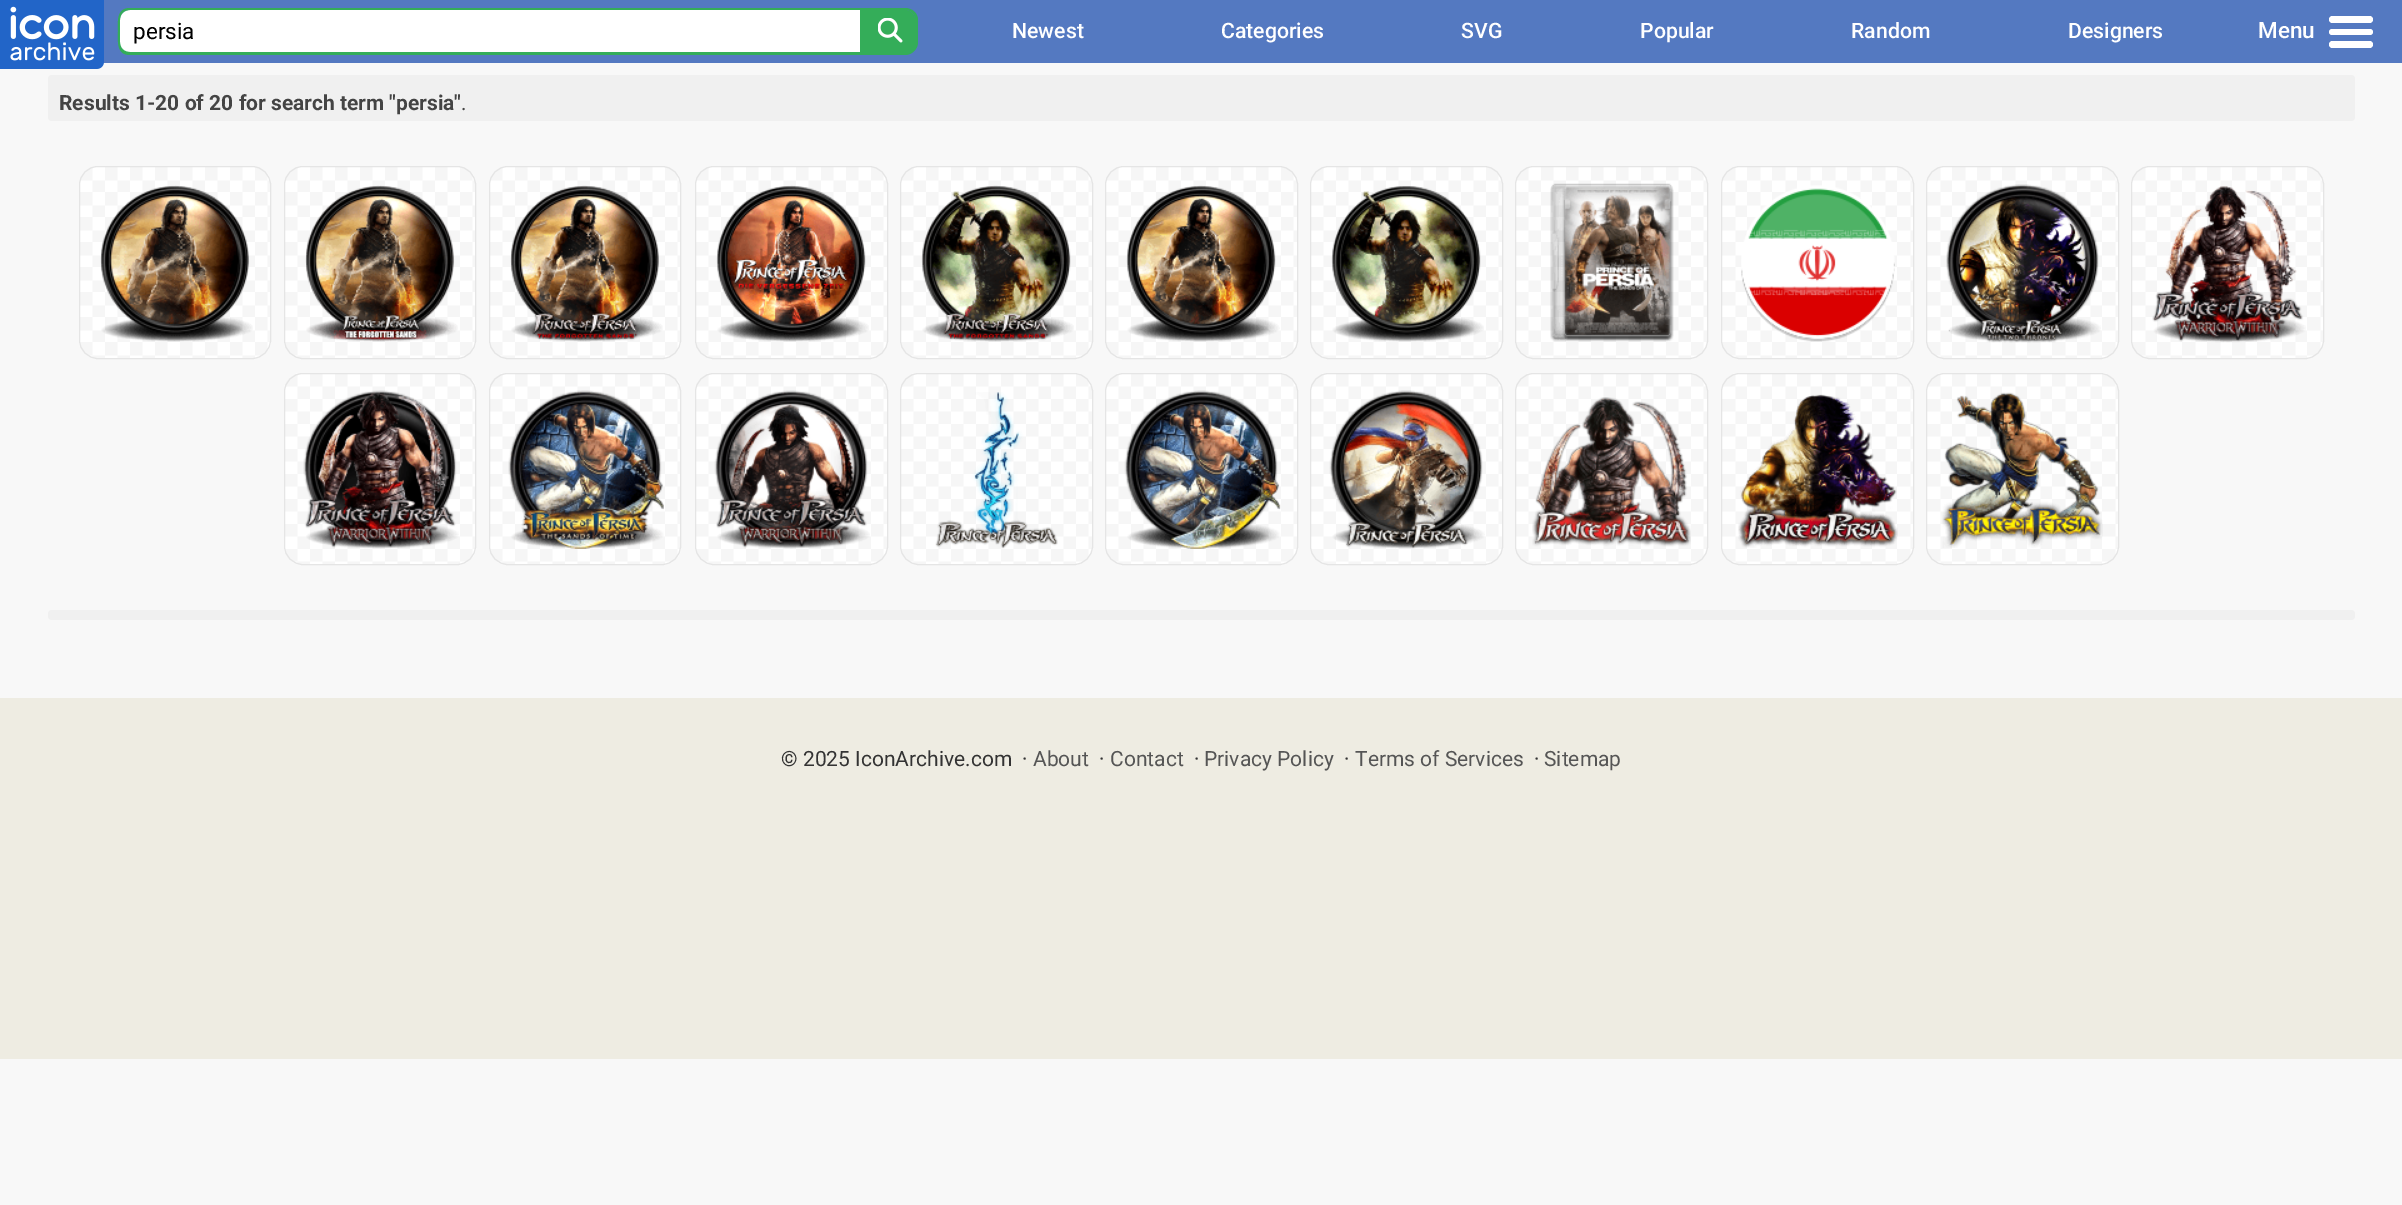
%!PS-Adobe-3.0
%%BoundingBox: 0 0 2402 1205
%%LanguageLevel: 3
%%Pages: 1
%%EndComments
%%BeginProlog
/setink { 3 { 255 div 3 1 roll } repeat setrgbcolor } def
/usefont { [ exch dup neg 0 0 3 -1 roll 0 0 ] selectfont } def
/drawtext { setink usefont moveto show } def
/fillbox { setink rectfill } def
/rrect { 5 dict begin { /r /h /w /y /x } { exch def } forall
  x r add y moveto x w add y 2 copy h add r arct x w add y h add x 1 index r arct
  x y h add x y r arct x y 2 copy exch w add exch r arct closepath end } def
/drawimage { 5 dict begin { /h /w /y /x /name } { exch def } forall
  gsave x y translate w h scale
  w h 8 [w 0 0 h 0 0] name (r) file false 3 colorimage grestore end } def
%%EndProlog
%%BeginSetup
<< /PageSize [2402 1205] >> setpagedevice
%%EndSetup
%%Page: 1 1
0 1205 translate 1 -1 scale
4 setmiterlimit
0 0 2402 1205 248 248 248 fillbox
103 0 2299 63 84 121 193 fillbox
(assets/img1.rgb) 0 0 104 69 drawimage
255 255 255 setink
130 10 moveto 860 10 lineto 860 53 lineto 130 53 lineto 124.5 53 120 48.5 120 43 curveto 120 20 lineto 120 14.5 124.5 10 130 10 curveto closepath fill
52 173 89 setink
130 8 moveto 860 8 lineto 860 55 lineto 130 55 lineto 116 55 118 41 118 31 curveto 118 22 116 8 130 8 curveto closepath 130 10 moveto 860 10 lineto 860 52 lineto 130 52 lineto 124 52 120 48 120 42 curveto 120 20 lineto 120 14 124 10 130 10 curveto closepath eofill
(persia) 133 39 /Roboto-Regular 22.5 0 0 0 drawtext
52 173 89 setink
860 10 moveto 905 10 lineto 910.5 10 915 14.5 915 20 curveto 915 43 lineto 915 48.5 910.5 53 905 53 curveto 860 53 lineto closepath fill
860 8 moveto 905 8 lineto 912 8 918 13 918 20 curveto 918 42 lineto 918 49 912 55 905 55 curveto 860 55 lineto closepath 860 10 moveto 905 10 lineto 911 10 915 14 915 20 curveto 915 42 lineto 915 48 911 52 905 52 curveto 860 52 lineto closepath eofill
(assets/img2.rgb) 878 18 25 25 drawimage
(Newest) 1012 38 /Roboto-Medium 21.25 255 255 255 drawtext
(Categories) 1221 38 /Roboto-Medium 21.25 255 255 255 drawtext
(SVG) 1461 38 /Roboto-Medium 21.25 255 255 255 drawtext
(Popular) 1640 38 /Roboto-Medium 21.25 255 255 255 drawtext
(Random) 1851 38 /Roboto-Medium 21.25 255 255 255 drawtext
(Designers) 2068 38 /Roboto-Medium 21.25 255 255 255 drawtext
(Menu) 2258 38 /Roboto-Medium 22.5 255 255 255 drawtext
2329 16 44 7 3.5 rrect fill
2329 29 44 6 3 rrect fill
2329 41 44 7 3.5 rrect fill
240 240 240 setink
48 75 2307 46 4 rrect fill
(Results 1-20 of 20 for search term "persia") 59 110 /Roboto-Bold 21 68 68 68 drawtext
(.) 461 110 /Roboto-Regular 21 68 68 68 drawtext
(assets/img3.rgb) 79 167 192 191 drawimage
229 229 229 setink
79.5 166.5 191 192 18.5 rrect stroke
(assets/img4.rgb) 100 185 153 157 drawimage
(assets/img5.rgb) 284 167 192 191 drawimage
284.5 166.5 191 192 18.5 rrect stroke
(assets/img6.rgb) 305 185 153 157 drawimage
(assets/img5.rgb) 489 167 192 191 drawimage
489.5 166.5 191 192 18.5 rrect stroke
(assets/img7.rgb) 510 185 153 157 drawimage
(assets/img8.rgb) 695 167 192 191 drawimage
695.5 166.5 192 192 18.5 rrect stroke
(assets/img9.rgb) 716 185 153 157 drawimage
(assets/img8.rgb) 900 167 192 191 drawimage
900.5 166.5 192 192 18.5 rrect stroke
(assets/img10.rgb) 921 185 153 157 drawimage
(assets/img8.rgb) 1105 167 192 191 drawimage
1105.5 166.5 192 192 18.5 rrect stroke
(assets/img11.rgb) 1126 185 154 157 drawimage
(assets/img8.rgb) 1310 167 192 191 drawimage
1310.5 166.5 192 192 18.5 rrect stroke
(assets/img12.rgb) 1331 186 153 156 drawimage
(assets/img13.rgb) 1515 167 192 191 drawimage
1515.5 166.5 192 192 18.5 rrect stroke
(assets/img14.rgb) 1550 183 124 159 drawimage
(assets/img15.rgb) 1722 167 191 191 drawimage
1721.5 166.5 192 192 18.5 rrect stroke
(assets/img16.rgb) 1741 185 154 157 drawimage
(assets/img15.rgb) 1927 167 191 191 drawimage
1926.5 166.5 192 192 18.5 rrect stroke
(assets/img17.rgb) 1946 184 155 159 drawimage
(assets/img15.rgb) 2132 167 191 191 drawimage
2131.5 166.5 192 192 18.5 rrect stroke
(assets/img18.rgb) 2152 186 154 157 drawimage
(assets/img19.rgb) 284 373 192 192 drawimage
284.5 373.5 191 191 18.5 rrect stroke
(assets/img20.rgb) 303 390 156 159 drawimage
(assets/img19.rgb) 489 373 192 192 drawimage
489.5 373.5 191 191 18.5 rrect stroke
(assets/img21.rgb) 508 390 156 159 drawimage
(assets/img22.rgb) 695 373 192 192 drawimage
695.5 373.5 192 191 18.5 rrect stroke
(assets/img23.rgb) 714 390 156 159 drawimage
(assets/img22.rgb) 900 373 192 192 drawimage
900.5 373.5 192 191 18.5 rrect stroke
(assets/img24.rgb) 935 392 123 157 drawimage
(assets/img22.rgb) 1105 373 192 192 drawimage
1105.5 373.5 192 191 18.5 rrect stroke
(assets/img25.rgb) 1124 390 157 159 drawimage
(assets/img22.rgb) 1310 373 192 192 drawimage
1310.5 373.5 192 191 18.5 rrect stroke
(assets/img26.rgb) 1329 390 156 159 drawimage
(assets/img27.rgb) 1515 373 192 192 drawimage
1515.5 373.5 192 191 18.5 rrect stroke
(assets/img28.rgb) 1532 397 159 150 drawimage
(assets/img29.rgb) 1722 373 191 192 drawimage
1721.5 373.5 192 191 18.5 rrect stroke
(assets/img30.rgb) 1738 394 160 154 drawimage
(assets/img29.rgb) 1927 373 191 192 drawimage
1926.5 373.5 192 191 18.5 rrect stroke
(assets/img31.rgb) 1942 392 161 156 drawimage
240 240 240 setink
48 610 2307 10 4 rrect fill
0 698 2402 361 238 236 226 fillbox
(© 2025 IconArchive.com) 781 766 /Roboto-Regular 21 51 51 51 drawtext
(·) 1022 766 /Roboto-Regular 21 51 51 51 drawtext
(About) 1033 766 /Roboto-Regular 21 85 85 85 drawtext
(·) 1099 766 /Roboto-Regular 21 51 51 51 drawtext
(Contact) 1110 766 /Roboto-Regular 21 85 85 85 drawtext
(·) 1194 766 /Roboto-Regular 21 51 51 51 drawtext
(Privacy Policy) 1204 766 /Roboto-Regular 21 85 85 85 drawtext
(·) 1344 766 /Roboto-Regular 21 51 51 51 drawtext
(Terms of Services) 1355 766 /Roboto-Regular 21 85 85 85 drawtext
(·) 1534 766 /Roboto-Regular 21 51 51 51 drawtext
(Sitemap) 1544 766 /Roboto-Regular 21 85 85 85 drawtext
showpage
%%EOF
